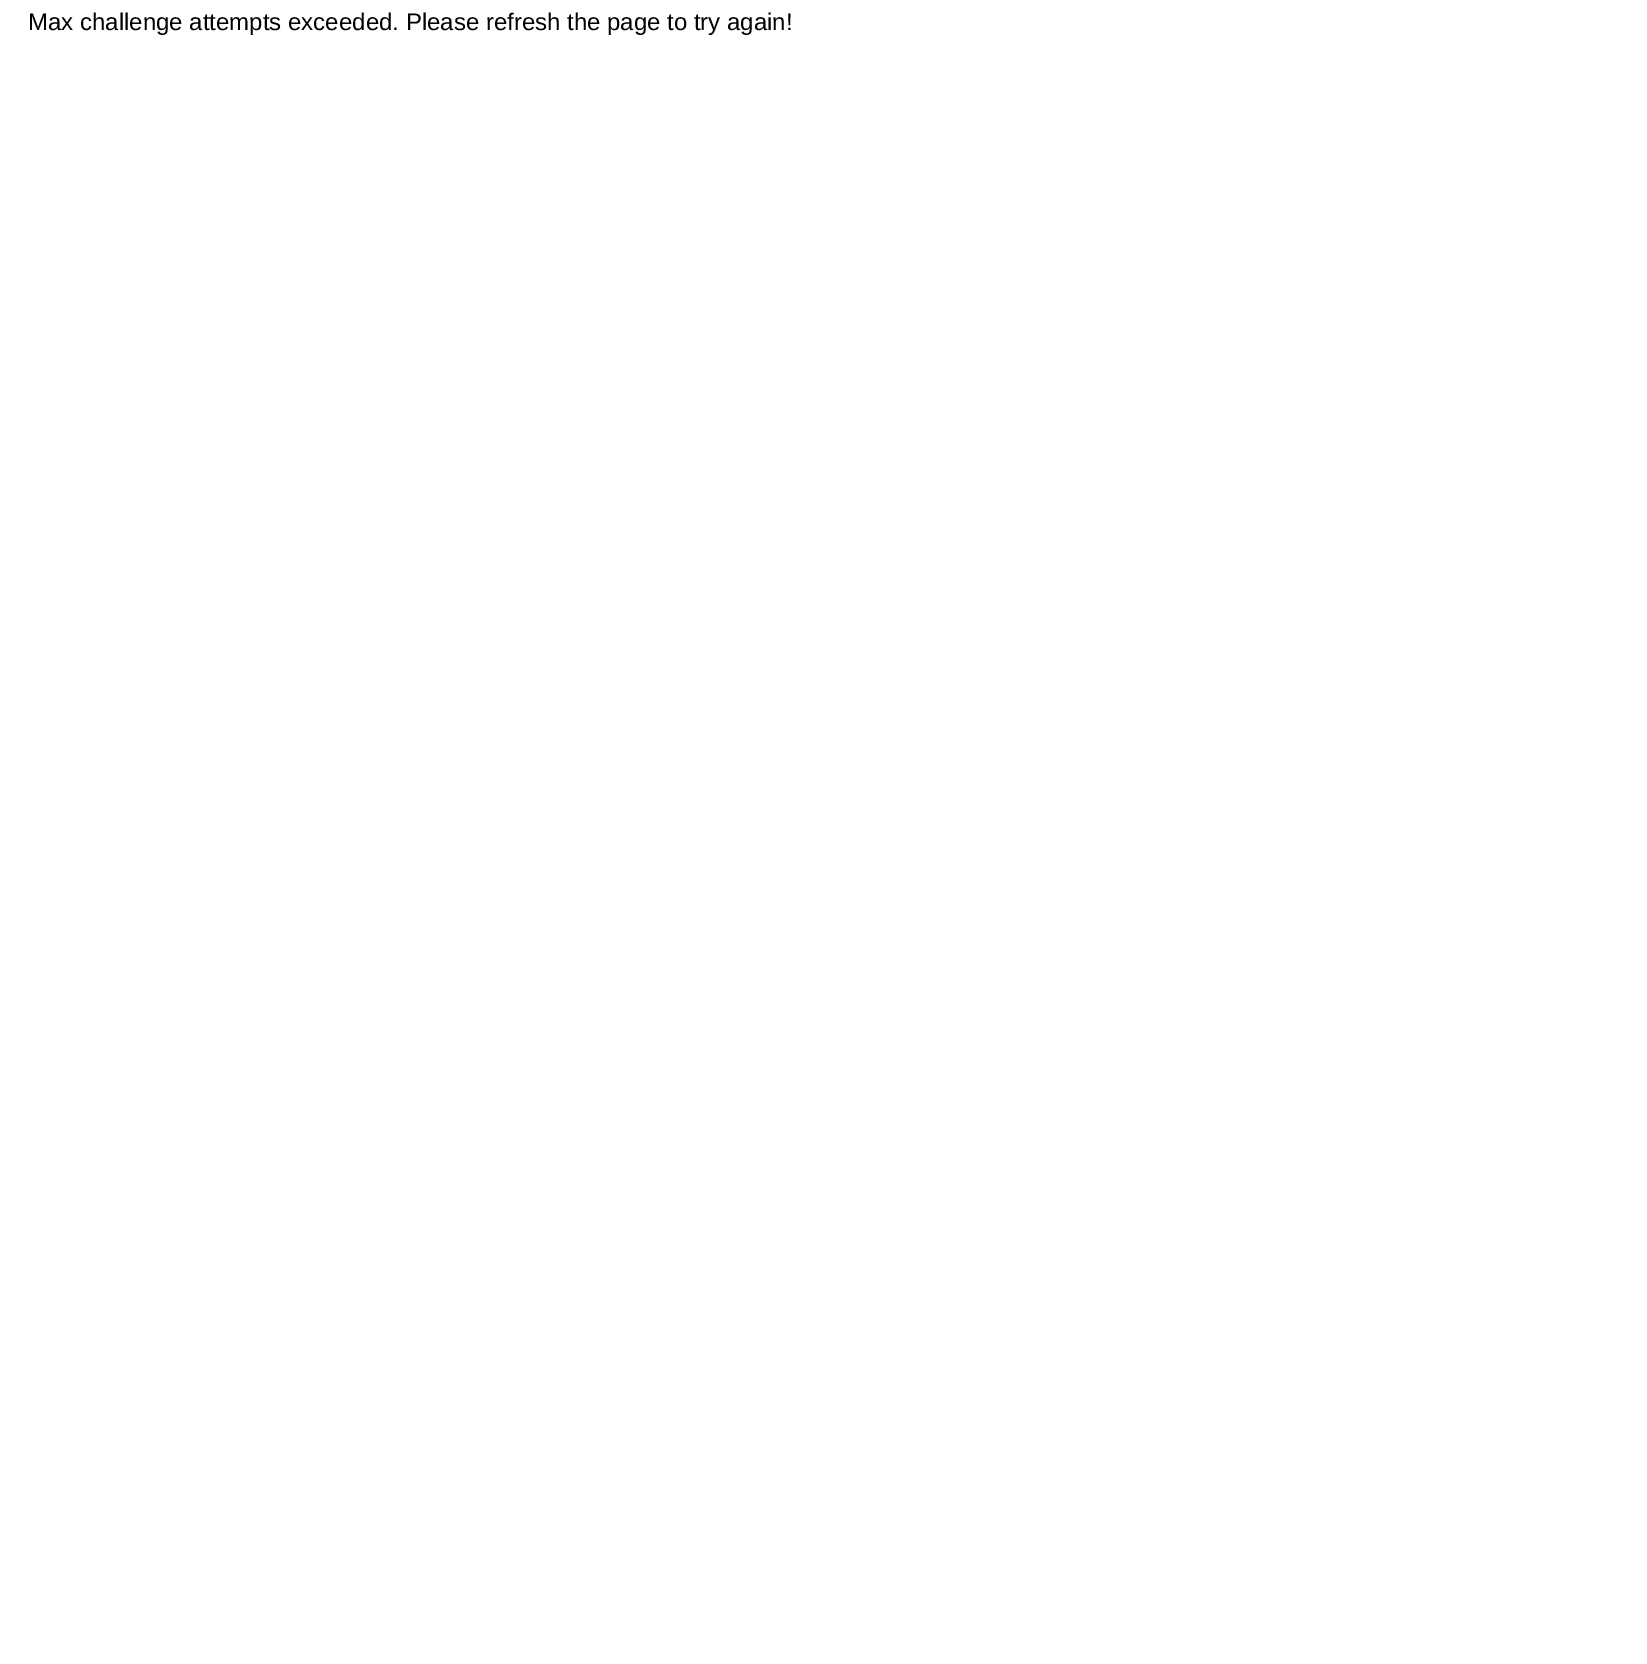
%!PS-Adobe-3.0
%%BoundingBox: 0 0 1647 1664
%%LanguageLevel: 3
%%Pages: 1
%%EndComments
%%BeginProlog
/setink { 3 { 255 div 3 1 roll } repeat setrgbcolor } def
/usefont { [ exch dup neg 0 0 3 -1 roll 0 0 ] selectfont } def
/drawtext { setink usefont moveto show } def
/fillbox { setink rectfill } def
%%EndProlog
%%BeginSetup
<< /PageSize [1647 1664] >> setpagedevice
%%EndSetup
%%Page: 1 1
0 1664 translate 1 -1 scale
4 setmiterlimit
0 0 1647 1664 255 255 255 fillbox
(Max challenge attempts exceeded. Please refresh the page to try again!) 28 30 /LiberationSans-Regular 24 0 0 0 drawtext
showpage
%%EOF
